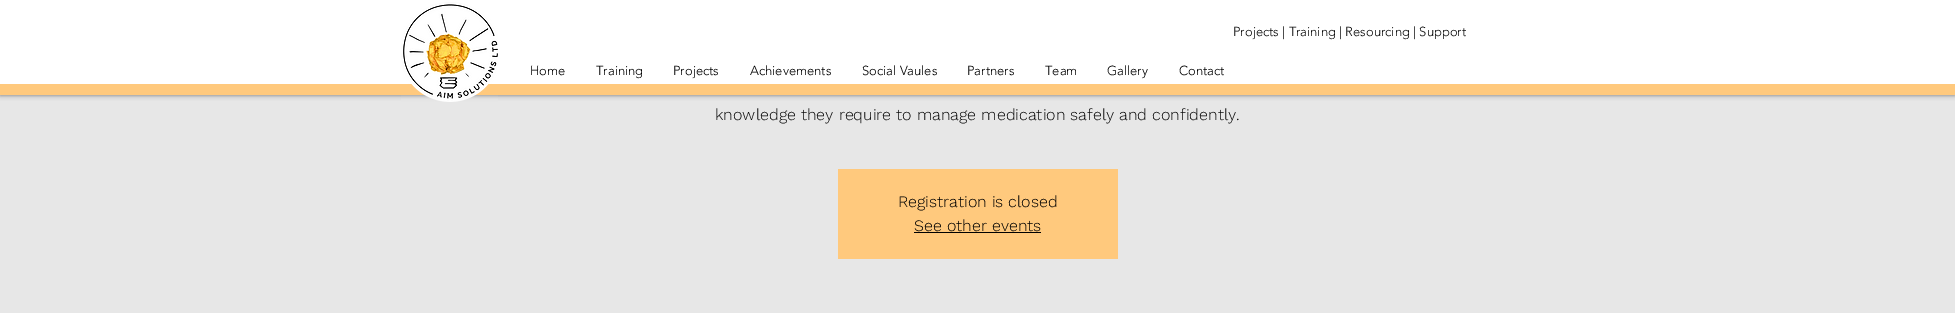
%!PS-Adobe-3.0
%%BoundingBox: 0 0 1955 316
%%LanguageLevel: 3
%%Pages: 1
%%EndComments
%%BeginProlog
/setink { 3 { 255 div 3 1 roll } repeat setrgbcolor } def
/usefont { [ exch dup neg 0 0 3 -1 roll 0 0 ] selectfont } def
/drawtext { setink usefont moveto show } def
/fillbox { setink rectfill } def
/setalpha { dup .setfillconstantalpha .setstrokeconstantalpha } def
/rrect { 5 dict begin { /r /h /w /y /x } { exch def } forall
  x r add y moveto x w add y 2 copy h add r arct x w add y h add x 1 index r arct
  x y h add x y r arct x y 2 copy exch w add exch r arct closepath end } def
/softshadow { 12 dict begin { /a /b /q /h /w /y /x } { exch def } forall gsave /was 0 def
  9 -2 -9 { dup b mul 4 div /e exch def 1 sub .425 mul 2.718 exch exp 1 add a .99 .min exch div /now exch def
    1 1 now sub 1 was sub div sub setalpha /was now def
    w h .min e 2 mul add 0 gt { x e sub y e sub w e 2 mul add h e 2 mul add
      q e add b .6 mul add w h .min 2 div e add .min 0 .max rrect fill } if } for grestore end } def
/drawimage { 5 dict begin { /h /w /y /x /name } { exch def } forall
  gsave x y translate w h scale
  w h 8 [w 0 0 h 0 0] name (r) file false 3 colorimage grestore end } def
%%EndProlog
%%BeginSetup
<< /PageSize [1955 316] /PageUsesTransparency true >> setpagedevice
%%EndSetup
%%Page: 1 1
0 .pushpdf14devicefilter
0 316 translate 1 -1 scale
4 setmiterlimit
0 0 1955 316 255 255 255 fillbox
0 95 1955 218 231 231 231 fillbox
0 0 0 setink
0 0 1955 95 0 2.5 0.5 softshadow
0 84 1955 11 255 201 125 fillbox
0 0 1955 84 255 255 255 fillbox
(assets/img1.rgb) 401 2 97 100 drawimage
(Projects | Training | Resourcing | Support) 1233 36 /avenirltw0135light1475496-Light 13 11 11 11 drawtext
(Home) 530 75 /avenirltw0135light1475496-Light 13 0 0 0 drawtext
(Training) 596 75 /avenirltw0135light1475496-Light 13 0 0 0 drawtext
(Projects) 673 75 /avenirltw0135light1475496-Light 13 0 0 0 drawtext
(Achievements) 750 75 /avenirltw0135light1475496-Light 13 0 0 0 drawtext
(Social Vaules) 862 75 /avenirltw0135light1475496-Light 13 0 0 0 drawtext
(Partners) 967 75 /avenirltw0135light1475496-Light 13 0 0 0 drawtext
(Team) 1045 75 /avenirltw0135light1475496-Light 13 0 0 0 drawtext
(Gallery) 1107 75 /avenirltw0135light1475496-Light 13 0 0 0 drawtext
(Contact) 1179 75 /avenirltw0135light1475496-Light 13 0 0 0 drawtext
(knowledge they require to manage medication safely and confidently.) 715 120 /WorkSans-Light 16 11 11 11 drawtext
838 169 280 90 255 201 125 fillbox
(Registration is closed) 898 207 /WorkSans-Light 16 0 0 0 drawtext
(See other events) 914 231 /WorkSans-Light 16 0 0 0 drawtext
914 232 127 1 0 0 0 fillbox
.poppdf14devicefilter showpage
%%EOF
